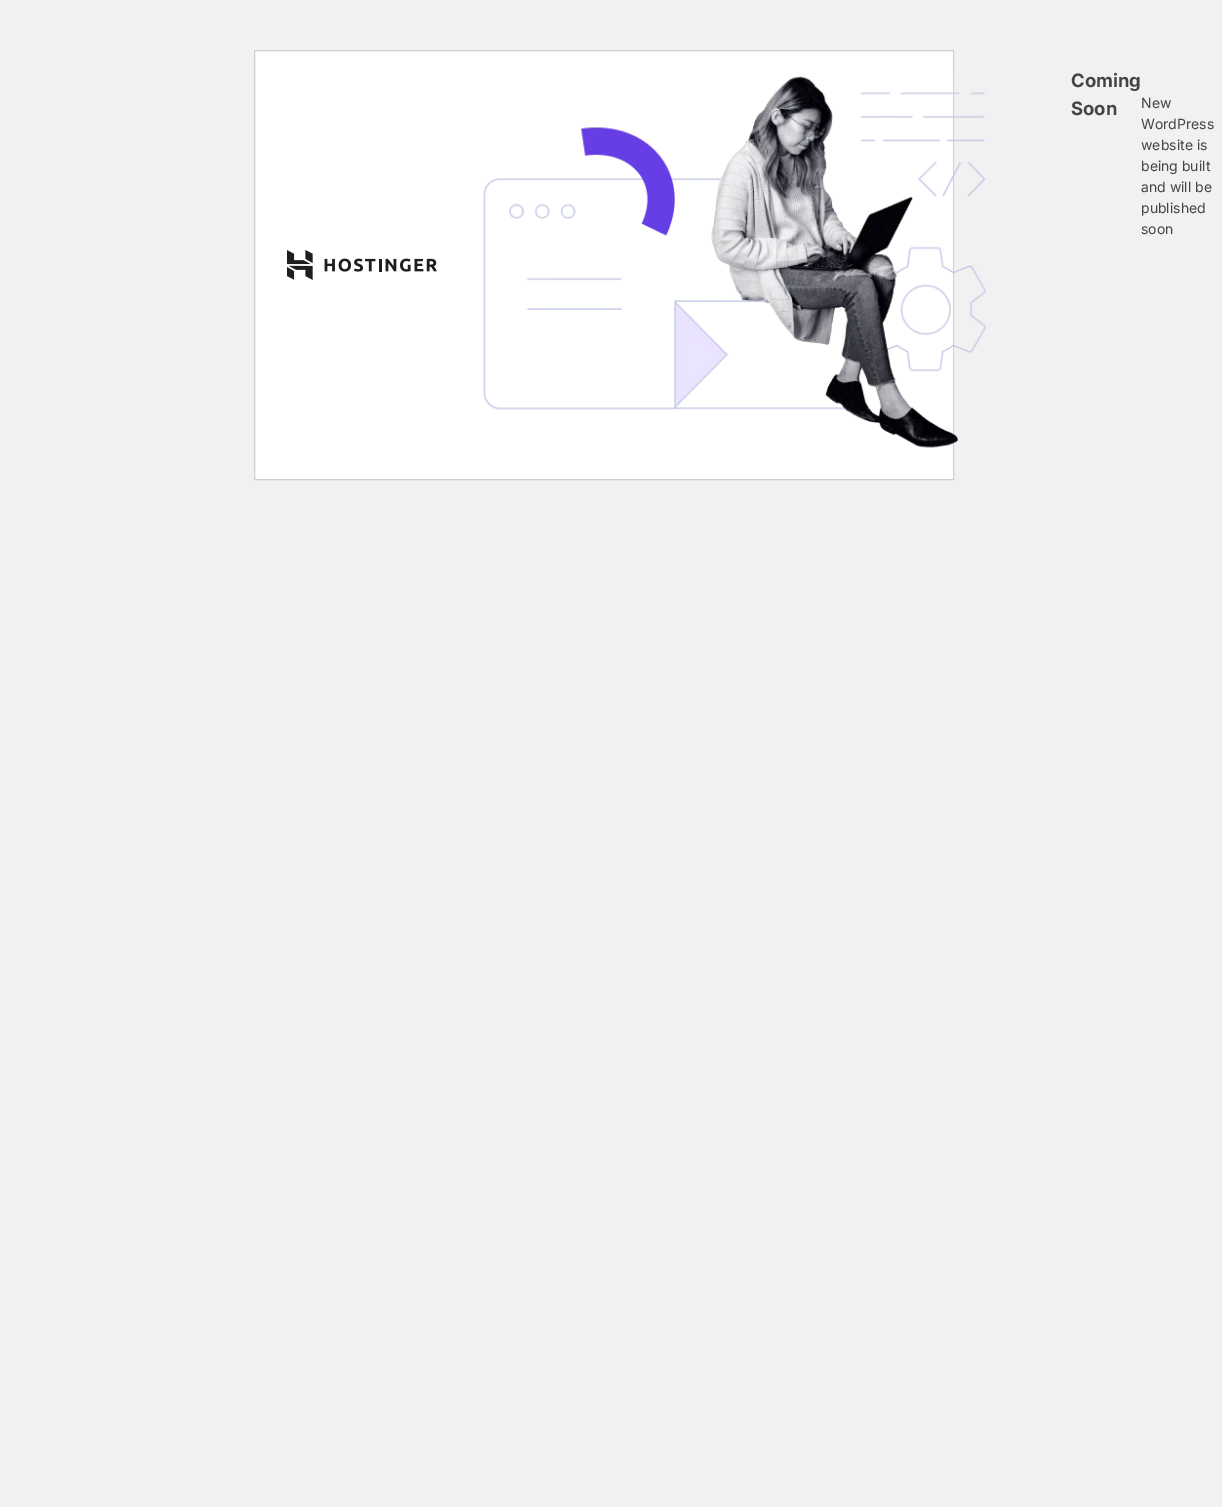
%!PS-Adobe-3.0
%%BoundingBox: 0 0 1222 1507
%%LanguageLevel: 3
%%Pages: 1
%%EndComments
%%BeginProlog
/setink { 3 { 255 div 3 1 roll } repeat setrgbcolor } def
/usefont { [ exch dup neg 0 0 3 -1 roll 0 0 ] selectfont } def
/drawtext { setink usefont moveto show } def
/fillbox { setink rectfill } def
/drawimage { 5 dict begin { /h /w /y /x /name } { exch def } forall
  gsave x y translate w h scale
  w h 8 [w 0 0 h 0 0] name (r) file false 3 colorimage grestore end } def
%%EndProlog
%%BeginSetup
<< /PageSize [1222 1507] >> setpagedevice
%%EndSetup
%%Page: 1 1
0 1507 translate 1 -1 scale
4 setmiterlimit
0 0 1222 1507 241 241 241 fillbox
255 255 255 setink
254.5 50.5 moveto 953.5 50.5 lineto 953.5 479.5 lineto 254.5 479.5 lineto closepath gsave fill grestore
204 208 212 setink
stroke
(assets/img1.rgb) 483 76 503 372 drawimage
(Coming) 1071 87 /Inter-Bold 18.5 68 68 68 drawtext
(Soon) 1071 115 /Inter-Bold 18.5 68 68 68 drawtext
(New) 1141 108 /Inter-Regular 14 68 68 68 drawtext
(WordPress) 1141 129 /Inter-Regular 14 68 68 68 drawtext
(website is) 1141 150 /Inter-Regular 14 68 68 68 drawtext
(being built) 1141 171 /Inter-Regular 14 68 68 68 drawtext
(and will be) 1141 192 /Inter-Regular 14 68 68 68 drawtext
(published) 1141 213 /Inter-Regular 14 68 68 68 drawtext
(soon) 1141 234 /Inter-Regular 14 68 68 68 drawtext
(assets/img2.rgb) 287 250 150 30 drawimage
showpage
%%EOF
